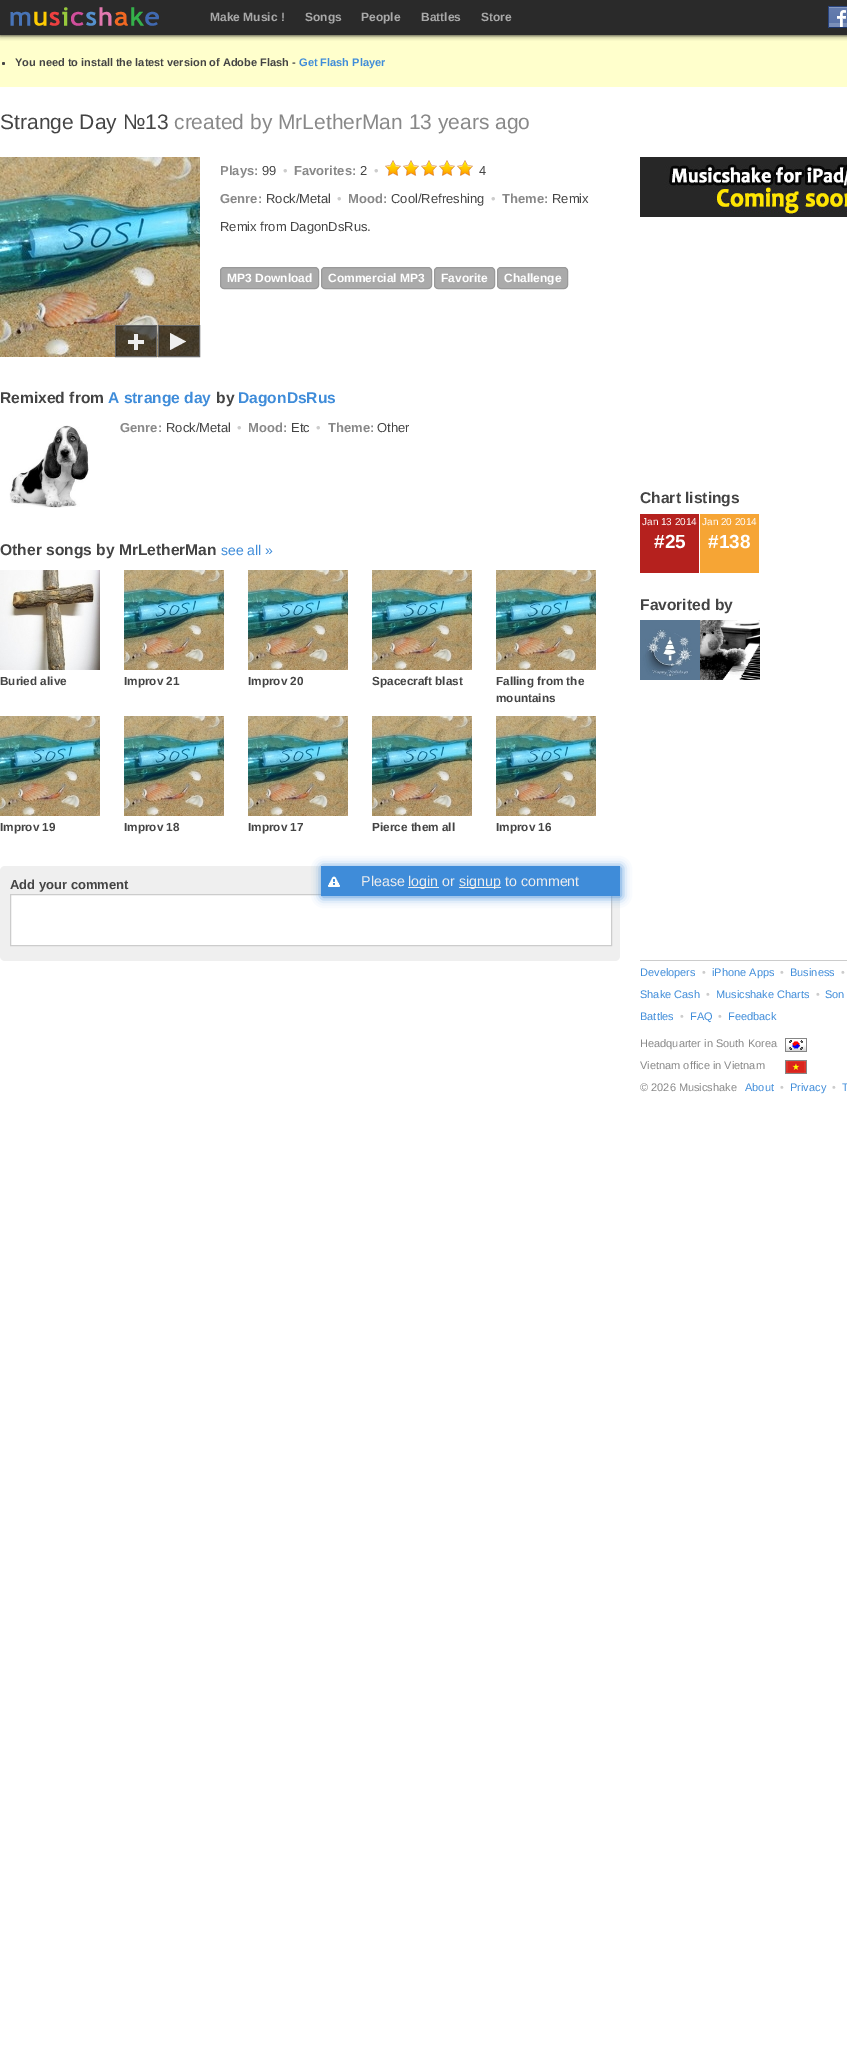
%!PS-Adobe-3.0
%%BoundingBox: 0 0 847 2047
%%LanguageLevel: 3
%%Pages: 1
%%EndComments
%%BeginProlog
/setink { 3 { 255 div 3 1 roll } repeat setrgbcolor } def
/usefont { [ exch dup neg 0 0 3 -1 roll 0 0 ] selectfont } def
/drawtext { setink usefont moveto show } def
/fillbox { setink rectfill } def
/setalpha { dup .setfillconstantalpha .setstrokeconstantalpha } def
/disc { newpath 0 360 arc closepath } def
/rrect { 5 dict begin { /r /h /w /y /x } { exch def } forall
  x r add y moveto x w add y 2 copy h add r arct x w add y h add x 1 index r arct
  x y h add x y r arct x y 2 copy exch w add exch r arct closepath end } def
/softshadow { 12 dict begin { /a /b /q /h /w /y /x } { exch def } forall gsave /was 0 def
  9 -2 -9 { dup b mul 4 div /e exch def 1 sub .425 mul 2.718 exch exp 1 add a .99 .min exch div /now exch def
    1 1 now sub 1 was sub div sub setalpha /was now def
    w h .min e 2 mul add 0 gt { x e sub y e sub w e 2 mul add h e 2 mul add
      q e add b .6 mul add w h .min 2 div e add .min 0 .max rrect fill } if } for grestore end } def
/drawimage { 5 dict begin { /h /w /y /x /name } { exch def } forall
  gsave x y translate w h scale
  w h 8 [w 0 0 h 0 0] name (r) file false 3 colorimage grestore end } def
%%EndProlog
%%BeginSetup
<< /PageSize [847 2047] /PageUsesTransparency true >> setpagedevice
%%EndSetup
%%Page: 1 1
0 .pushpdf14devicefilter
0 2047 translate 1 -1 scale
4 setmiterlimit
0 0 847 2047 255 255 255 fillbox
0 35 847 52 255 255 204 fillbox
0 0 0 setink
0 0 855 35 0 2.5 1 softshadow
0 0 847 35 42 42 42 fillbox
(assets/img1.rgb) 10 7 149 19 drawimage
(Make Music !) 210 21 /LiberationSans-Bold 12 169 169 169 drawtext
(Songs) 305 21 /LiberationSans-Bold 12 169 169 169 drawtext
(People) 361 21 /LiberationSans-Bold 12 169 169 169 drawtext
(Battles) 421 21 /LiberationSans-Bold 12 169 169 169 drawtext
(Store) 481 21 /LiberationSans-Bold 12 169 169 169 drawtext
(assets/img2.rgb) 828 6 19 22 drawimage
68 68 68 setink
3.5 63.5 1.5 disc fill
(You need to install the latest version of Adobe Flash -) 15 66 /LiberationSans-Bold 11 68 68 68 drawtext
(Get Flash Player) 299 66 /LiberationSans-Bold 11 63 140 217 drawtext
(Strange Day №13) 0 129 /LiberationSans-Regular 21 68 68 68 drawtext
(created by MrLetherMan 13 years ago) 174 129 /LiberationSans-Regular 21 136 136 136 drawtext
(assets/img3.rgb) 0 157 200 200 drawimage
102 102 102 setink
115.5 325.5 41 31 rectstroke
0.6 setalpha
116 326 40 30 0 0 0 fillbox
1 setalpha
(assets/img4.rgb) 128 334 16 16 drawimage
102 102 102 setink
158.5 325.5 41 31 rectstroke
0.6 setalpha
159 326 40 30 0 0 0 fillbox
1 setalpha
(assets/img5.rgb) 170 333 16 17 drawimage
(Plays:) 220 175 /LiberationSans-Bold 13 136 136 136 drawtext
(99) 262 175 /LiberationSans-Regular 13 68 68 68 drawtext
(•) 283 175 /LiberationSans-Regular 13 204 204 204 drawtext
(Favorites:) 294 175 /LiberationSans-Bold 13 136 136 136 drawtext
(2) 360 175 /LiberationSans-Regular 13 68 68 68 drawtext
(•) 374 175 /LiberationSans-Regular 13 204 204 204 drawtext
(assets/img6.rgb) 385 160 16 16 drawimage
(assets/img6.rgb) 403 160 16 16 drawimage
(assets/img6.rgb) 421 160 16 16 drawimage
(assets/img6.rgb) 439 160 16 16 drawimage
(assets/img6.rgb) 457 160 16 16 drawimage
(4) 479 175 /LiberationSans-Regular 13 68 68 68 drawtext
(Genre:) 220 203 /LiberationSans-Bold 13 136 136 136 drawtext
(Rock/Metal) 266 203 /LiberationSans-Regular 13 68 68 68 drawtext
(•) 337 203 /LiberationSans-Regular 13 204 204 204 drawtext
(Mood:) 348 203 /LiberationSans-Bold 13 136 136 136 drawtext
(Cool/Refreshing) 391 203 /LiberationSans-Regular 13 68 68 68 drawtext
(•) 491 203 /LiberationSans-Regular 13 204 204 204 drawtext
(Theme:) 502 203 /LiberationSans-Bold 13 136 136 136 drawtext
(Remix) 552 203 /LiberationSans-Regular 13 68 68 68 drawtext
(Remix from DagonDsRus.) 220 231 /LiberationSans-Regular 13 68 68 68 drawtext
170 170 170 setink
220.5 267.5 98 21 3.5 rrect gsave fill grestore
153 153 153 setink
stroke
(MP3 Download) 227 282 /LiberationSans-Bold 12 255 255 255 drawtext
170 170 170 setink
321.5 267.5 110 21 3.5 rrect gsave fill grestore
153 153 153 setink
stroke
(Commercial MP3) 328 282 /LiberationSans-Bold 12 255 255 255 drawtext
170 170 170 setink
434.5 267.5 60 21 3.5 rrect gsave fill grestore
153 153 153 setink
stroke
(Favorite) 441 282 /LiberationSans-Bold 12 255 255 255 drawtext
170 170 170 setink
497.5 267.5 70 21 3.5 rrect gsave fill grestore
153 153 153 setink
stroke
(Challenge) 504 282 /LiberationSans-Bold 12 255 255 255 drawtext
(Remixed from) 0 403 /LiberationSans-Bold 15.6 68 68 68 drawtext
(A strange day) 108 403 /LiberationSans-Bold 15.6 63 140 217 drawtext
(by) 216 403 /LiberationSans-Bold 15.6 68 68 68 drawtext
(DagonDsRus) 238 403 /LiberationSans-Bold 15.6 63 140 217 drawtext
(assets/img7.rgb) 9 425 80 83 drawimage
(Genre:) 120 432 /LiberationSans-Bold 13 136 136 136 drawtext
(Rock/Metal) 166 432 /LiberationSans-Regular 13 68 68 68 drawtext
(•) 237 432 /LiberationSans-Regular 13 204 204 204 drawtext
(Mood:) 248 432 /LiberationSans-Bold 13 136 136 136 drawtext
(Etc) 291 432 /LiberationSans-Regular 13 68 68 68 drawtext
(•) 316 432 /LiberationSans-Regular 13 204 204 204 drawtext
(Theme:) 328 432 /LiberationSans-Bold 13 136 136 136 drawtext
(Other) 377 432 /LiberationSans-Regular 13 68 68 68 drawtext
(Other songs by MrLetherMan) 0 555 /LiberationSans-Bold 15.6 68 68 68 drawtext
(see all ») 221 555 /LiberationSans-Regular 14 63 140 217 drawtext
(assets/img8.rgb) 0 570 100 100 drawimage
(Buried alive) 0 685 /LiberationSans-Bold 11.75 68 68 68 drawtext
(assets/img9.rgb) 124 570 100 100 drawimage
(Improv 21) 124 685 /LiberationSans-Bold 11.75 68 68 68 drawtext
(assets/img9.rgb) 248 570 100 100 drawimage
(Improv 20) 248 685 /LiberationSans-Bold 11.75 68 68 68 drawtext
(assets/img9.rgb) 372 570 100 100 drawimage
(Spacecraft blast) 372 685 /LiberationSans-Bold 11.75 68 68 68 drawtext
(assets/img9.rgb) 496 570 100 100 drawimage
(Falling from the) 496 685 /LiberationSans-Bold 11.75 68 68 68 drawtext
(mountains) 496 702 /LiberationSans-Bold 11.75 68 68 68 drawtext
(assets/img9.rgb) 0 716 100 100 drawimage
(Improv 19) 0 831 /LiberationSans-Bold 11.75 68 68 68 drawtext
(assets/img9.rgb) 124 716 100 100 drawimage
(Improv 18) 124 831 /LiberationSans-Bold 11.75 68 68 68 drawtext
(assets/img9.rgb) 248 716 100 100 drawimage
(Improv 17) 248 831 /LiberationSans-Bold 11.75 68 68 68 drawtext
(assets/img9.rgb) 372 716 100 100 drawimage
(Pierce them all) 372 831 /LiberationSans-Bold 11.75 68 68 68 drawtext
(assets/img9.rgb) 496 716 100 100 drawimage
(Improv 16) 496 831 /LiberationSans-Bold 11.75 68 68 68 drawtext
239 239 239 setink
0 866 620 95 5 rrect fill
(Add your comment) 10 889 /LiberationSans-Bold 13 68 68 68 drawtext
255 255 255 setink
10.5 894.5 moveto 611.5 894.5 lineto 611.5 945.5 lineto 10.5 945.5 lineto closepath gsave fill grestore
204 204 204 setink
stroke
63 140 217 setink
322 867 299 30 0 5 1 softshadow
321 866 299 30 63 140 217 fillbox
(assets/img10.rgb) 328 876 12 11 drawimage
(Please) 361 886 /LiberationSans-Regular 14.25 238 238 238 drawtext
408 887 31 1 238 238 238 fillbox
(login or) 408 886 /LiberationSans-Regular 14.25 238 238 238 drawtext
459 887 42 1 238 238 238 fillbox
(signup to comment) 459 886 /LiberationSans-Regular 14.25 238 238 238 drawtext
(assets/img11.rgb) 640 157 207 60 drawimage
(Chart listings) 640 503 /LiberationSans-Bold 15.6 68 68 68 drawtext
640 514 59 59 181 33 30 fillbox
(Jan 13 2014) 642 525 /LiberationSans-Regular 10 255 255 255 drawtext
(#25) 654 548 /LiberationSans-Bold 19 255 255 255 drawtext
700 514 59 59 246 165 53 fillbox
(Jan 20 2014) 702 525 /LiberationSans-Regular 10 255 255 255 drawtext
(#138) 708 548 /LiberationSans-Bold 19 255 255 255 drawtext
(Favorited by) 640 610 /LiberationSans-Bold 15.6 68 68 68 drawtext
(assets/img12.rgb) 640 620 60 60 drawimage
(assets/img13.rgb) 700 620 60 60 drawimage
640 960 207 1 204 204 204 fillbox
(Developers) 640 976 /LiberationSans-Regular 11 63 140 217 drawtext
(•) 702 976 /LiberationSans-Regular 11 204 204 204 drawtext
(iPhone Apps) 712 976 /LiberationSans-Regular 11 63 140 217 drawtext
(•) 780 976 /LiberationSans-Regular 11 204 204 204 drawtext
(Business) 790 976 /LiberationSans-Regular 11 63 140 217 drawtext
(•) 841 976 /LiberationSans-Regular 11 204 204 204 drawtext
(Shake Cash) 640 998 /LiberationSans-Regular 11 63 140 217 drawtext
(•) 706 998 /LiberationSans-Regular 11 204 204 204 drawtext
(Musicshake Charts) 716 998 /LiberationSans-Regular 11 63 140 217 drawtext
(•) 816 998 /LiberationSans-Regular 11 204 204 204 drawtext
(Son) 825 998 /LiberationSans-Regular 11 63 140 217 drawtext
(Battles) 640 1020 /LiberationSans-Regular 11 63 140 217 drawtext
(•) 680 1020 /LiberationSans-Regular 11 204 204 204 drawtext
(FAQ) 690 1020 /LiberationSans-Regular 11 63 140 217 drawtext
(•) 718 1020 /LiberationSans-Regular 11 204 204 204 drawtext
(Feedback) 728 1020 /LiberationSans-Regular 11 63 140 217 drawtext
(Headquarter in South Korea) 640 1047 /LiberationSans-Regular 11 136 136 136 drawtext
(assets/img14.rgb) 785 1038 22 14 drawimage
(Vietnam office in Vietnam) 640 1069 /LiberationSans-Regular 11 136 136 136 drawtext
(assets/img15.rgb) 785 1060 22 14 drawimage
(© 2026 Musicshake) 640 1091 /LiberationSans-Regular 11 136 136 136 drawtext
(About) 745 1091 /LiberationSans-Regular 11 63 140 217 drawtext
(•) 780 1091 /LiberationSans-Regular 11 204 204 204 drawtext
(Privacy) 790 1091 /LiberationSans-Regular 11 63 140 217 drawtext
(•) 832 1091 /LiberationSans-Regular 11 204 204 204 drawtext
(T) 842 1091 /LiberationSans-Regular 11 63 140 217 drawtext
.poppdf14devicefilter showpage
%%EOF
